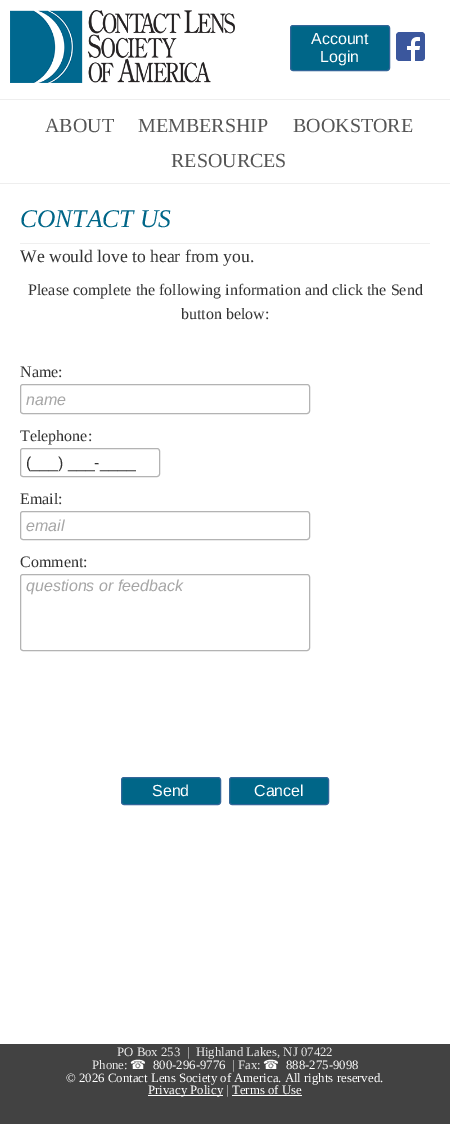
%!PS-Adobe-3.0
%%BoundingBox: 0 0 450 1124
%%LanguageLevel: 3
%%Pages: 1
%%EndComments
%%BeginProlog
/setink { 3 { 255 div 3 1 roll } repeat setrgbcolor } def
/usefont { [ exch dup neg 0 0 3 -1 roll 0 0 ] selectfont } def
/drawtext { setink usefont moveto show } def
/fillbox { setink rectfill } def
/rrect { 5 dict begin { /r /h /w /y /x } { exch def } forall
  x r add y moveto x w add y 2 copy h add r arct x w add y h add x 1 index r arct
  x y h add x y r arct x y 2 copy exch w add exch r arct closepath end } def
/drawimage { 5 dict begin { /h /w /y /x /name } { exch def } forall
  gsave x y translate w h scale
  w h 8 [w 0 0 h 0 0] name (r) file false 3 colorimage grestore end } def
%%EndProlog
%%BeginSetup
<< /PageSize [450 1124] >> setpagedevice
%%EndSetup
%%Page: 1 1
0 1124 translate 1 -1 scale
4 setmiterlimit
0 0 450 1124 255 255 255 fillbox
0 99 450 1 238 238 238 fillbox
(assets/img1.rgb) 10 10 225 73 drawimage
0 102 136 setink
290.5 25.5 99 45 2.5 rrect gsave fill grestore
51 102 153 setink
stroke
(Account) 311 44 /LiberationSans-Regular 16 255 255 255 drawtext
(Login) 320 62 /LiberationSans-Regular 16 255 255 255 drawtext
(assets/img2.rgb) 396 32 29 29 drawimage
0 183 450 1 238 238 238 fillbox
(ABOUT) 45 132 /LiberationSerif-Regular 20 85 85 85 drawtext
(MEMBERSHIP) 138 132 /LiberationSerif-Regular 20 85 85 85 drawtext
(BOOKSTORE) 293 132 /LiberationSerif-Regular 20 85 85 85 drawtext
(RESOURCES) 171 167 /LiberationSerif-Regular 20 85 85 85 drawtext
20 243 410 1 239 239 239 fillbox
(CONTACT US) 20 227 /LiberationSerif-Italic 25.5 0 102 136 drawtext
(We would love to hear from you.) 20 262 /LiberationSerif-Regular 17.6 51 51 51 drawtext
(Please complete the following information and click the Send) 28 295 /LiberationSerif-Regular 16 51 51 51 drawtext
(button below:) 181 319 /LiberationSerif-Regular 16 51 51 51 drawtext
(Name:) 20 377 /LiberationSerif-Regular 16 51 51 51 drawtext
179 179 179 setink
20.5 384.5 289 29 2.5 rrect stroke
(name) 26 405 /LiberationSans-Italic 16 166 166 166 drawtext
(Telephone:) 20 441 /LiberationSerif-Regular 16 51 51 51 drawtext
179 179 179 setink
20.5 448.5 139 28 2.5 rrect stroke
(\(___\) ___-____) 26 468 /LiberationSans-Regular 16 51 51 51 drawtext
(Email:) 20 504 /LiberationSerif-Regular 16 51 51 51 drawtext
179 179 179 setink
20.5 511.5 289 28 2.5 rrect stroke
(email) 26 531 /LiberationSans-Italic 16 166 166 166 drawtext
(Comment:) 20 567 /LiberationSerif-Regular 16 51 51 51 drawtext
179 179 179 setink
20.5 574.5 289 76 2.5 rrect stroke
(questions or feedback) 26 591 /LiberationSans-Italic 16 166 166 166 drawtext
0 102 136 setink
121.5 777.5 99 27 2.5 rrect gsave fill grestore
51 102 153 setink
stroke
(Send) 152 796 /LiberationSans-Regular 16 255 255 255 drawtext
0 102 136 setink
229.5 777.5 99 27 2.5 rrect gsave fill grestore
51 102 153 setink
stroke
(Cancel) 254 796 /LiberationSans-Regular 16 255 255 255 drawtext
0 1044 450 80 66 66 66 fillbox
(PO Box 253  |  Highland Lakes, NJ 07422) 117 1056 /LiberationSerif-Regular 12.8 234 234 234 drawtext
(Phone:) 92 1069 /LiberationSerif-Regular 12.8 234 234 234 drawtext
(☎) 130 1069 /DejaVuSans-Regular 12.8 255 255 255 drawtext
(800-296-9776) 153 1069 /LiberationSerif-Regular 12.8 255 255 255 drawtext
(| Fax:) 232 1069 /LiberationSerif-Regular 12.8 234 234 234 drawtext
(☎) 263 1069 /DejaVuSans-Regular 12.8 255 255 255 drawtext
(888-275-9098) 286 1069 /LiberationSerif-Regular 12.8 255 255 255 drawtext
(© 2026 Contact Lens Society of America. All rights reserved.) 66 1082 /LiberationSerif-Regular 12.8 255 255 255 drawtext
148 1095 75 1 255 255 255 fillbox
(Privacy Policy) 148 1094 /LiberationSerif-Regular 12.8 255 255 255 drawtext
(|) 226 1094 /LiberationSerif-Regular 12.8 234 234 234 drawtext
(Terms of Use) 232 1094 /LiberationSerif-Regular 12.8 255 255 255 drawtext
232 1095 70 1 255 255 255 fillbox
showpage
%%EOF
